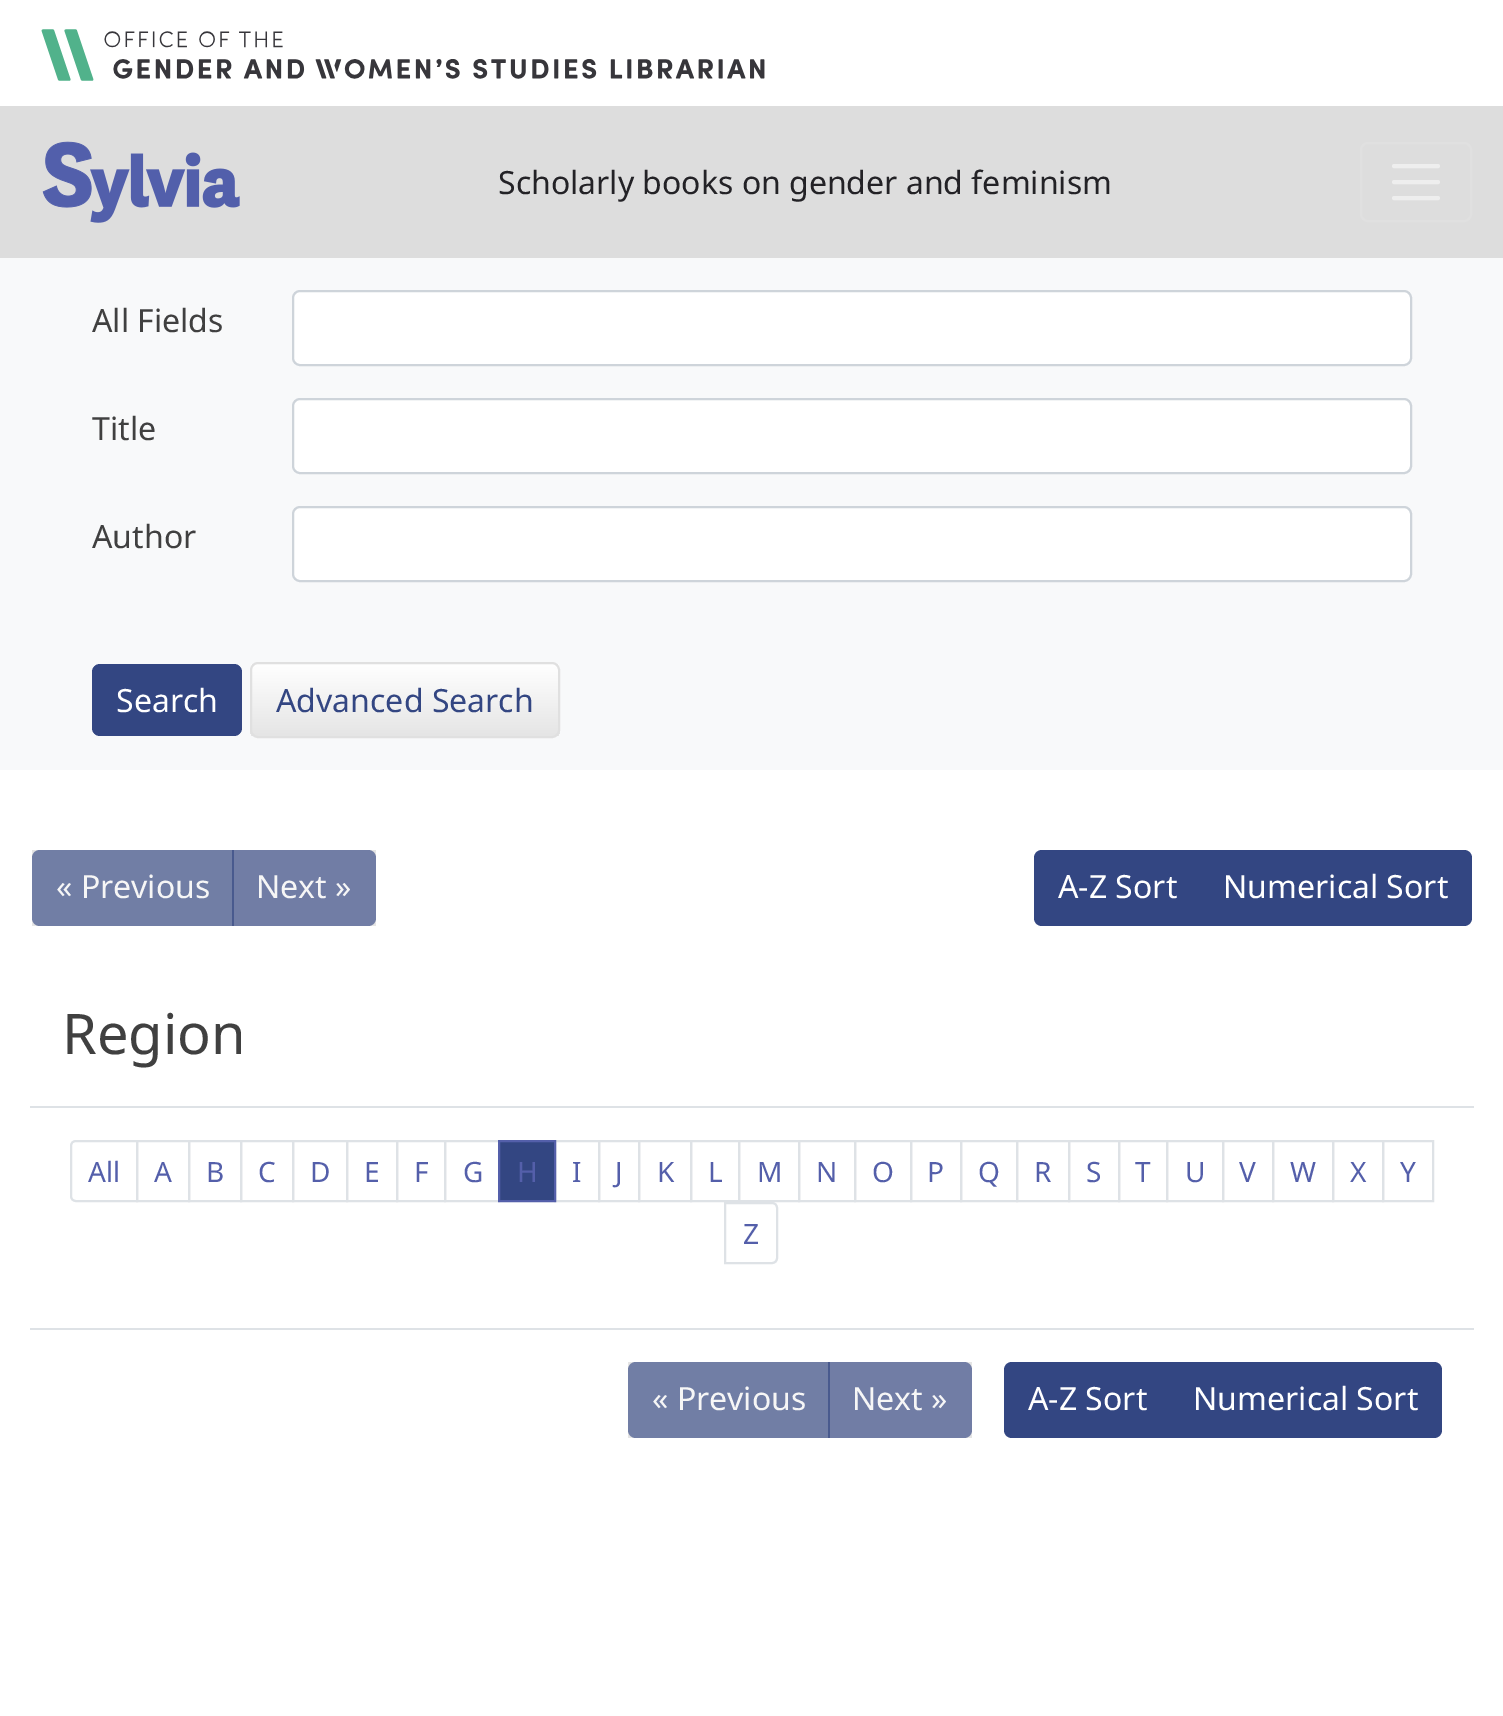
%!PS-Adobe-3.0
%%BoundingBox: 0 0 1503 1716
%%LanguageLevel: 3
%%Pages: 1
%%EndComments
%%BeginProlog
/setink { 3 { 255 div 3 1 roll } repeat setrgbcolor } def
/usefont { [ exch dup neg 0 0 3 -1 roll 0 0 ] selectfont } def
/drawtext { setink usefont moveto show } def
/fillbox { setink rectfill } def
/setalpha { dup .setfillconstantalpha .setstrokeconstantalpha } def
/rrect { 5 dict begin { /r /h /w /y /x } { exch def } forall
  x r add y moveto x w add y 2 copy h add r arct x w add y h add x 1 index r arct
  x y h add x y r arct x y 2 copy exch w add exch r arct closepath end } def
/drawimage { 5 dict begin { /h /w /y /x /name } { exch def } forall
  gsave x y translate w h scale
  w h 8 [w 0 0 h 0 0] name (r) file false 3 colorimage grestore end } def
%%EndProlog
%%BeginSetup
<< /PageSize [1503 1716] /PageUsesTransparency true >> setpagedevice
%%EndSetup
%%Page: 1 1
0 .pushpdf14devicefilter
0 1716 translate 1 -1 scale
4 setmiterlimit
0 0 1503 1716 255 255 255 fillbox
(assets/img1.rgb) 41 29 724 52 drawimage
0 106 1503 152 221 221 221 fillbox
(assets/img2.rgb) 42 141 198 82 drawimage
(Scholarly books on gender and feminism) 498 194 /NotoSans-Regular 32 35 34 38 drawtext
224 224 224 setink
2 setlinewidth
1361 143 110 78 7 rrect stroke
238 238 238 setink
4 setlinewidth
1 setlinecap
1394 166 moveto 1438 166 lineto 1394 182 moveto 1438 182 lineto 1394 198 moveto 1438 198 lineto stroke
0 258 1503 512 248 249 250 fillbox
(All Fields) 92 332 /NotoSans-Regular 32 64 64 64 drawtext
255 255 255 setink
293 291 1118 74 7 rrect gsave fill grestore
206 212 218 setink
2 setlinewidth
0 setlinecap
stroke
(Title) 92 440 /NotoSans-Regular 32 64 64 64 drawtext
255 255 255 setink
293 399 1118 74 7 rrect gsave fill grestore
206 212 218 setink
stroke
(Author) 92 548 /NotoSans-Regular 32 64 64 64 drawtext
255 255 255 setink
293 507 1118 74 7 rrect gsave fill grestore
206 212 218 setink
stroke
51 70 130 setink
92 664 150 72 8 rrect fill
(Search) 116 712 /NotoSans-Regular 32 255 255 255 drawtext
gsave
250 662 310 76 8 rrect clip newpath
gsave 250 664 moveto 560 664 lineto 560 736 lineto 250 736 lineto closepath clip newpath
<< /ShadingType 2 /ColorSpace /DeviceRGB /Coords [405 664 405 736] /Extend [true true] /Function << /FunctionType 2 /Domain [0 1] /C0 [1 1 1] /C1 [0.898 0.898 0.898] /N 1 >> >> shfill grestore
grestore
224 224 224 setink
251 663 308 74 7 rrect stroke
(Advanced Search) 276 712 /NotoSans-Regular 32 51 70 130 drawtext
32 850 344 76 229 229 229 fillbox
113 126 165 setink
40 850 moveto 234 850 lineto 234 926 lineto 40 926 lineto 35.5 926 32 922.5 32 918 curveto 32 858 lineto 32 853.5 35.5 850 40 850 curveto closepath fill
(« Previous) 56 898 /NotoSans-Regular 32 246 246 246 drawtext
0.65 setalpha
51 70 130 setink
232 850 moveto 368 850 lineto 372.5 850 376 853.5 376 858 curveto 376 918 lineto 376 922.5 372.5 926 368 926 curveto 232 926 lineto closepath fill
1 setalpha
(Next ») 256 898 /NotoSans-Regular 32 246 246 246 drawtext
51 70 130 setink
1198 850 moveto 1464 850 lineto 1468.5 850 1472 853.5 1472 858 curveto 1472 918 lineto 1472 922.5 1468.5 926 1464 926 curveto 1198 926 lineto closepath fill
1042 850 moveto 1200 850 lineto 1200 926 lineto 1042 926 lineto 1037.5 926 1034 922.5 1034 918 curveto 1034 858 lineto 1034 853.5 1037.5 850 1042 850 curveto closepath fill
(A-Z Sort) 1058 898 /NotoSans-Regular 32 255 255 255 drawtext
(Numerical Sort) 1223 898 /NotoSans-Regular 32 255 255 255 drawtext
30 1106 1444 2 222 226 230 fillbox
(Region) 62 1054 /NotoSans-Regular 56 64 64 64 drawtext
222 226 230 setink
76 1141 moveto 137 1141 lineto 137 1201 lineto 76 1201 lineto 73 1201 71 1199 71 1196 curveto 71 1146 lineto 71 1143 73 1141 76 1141 curveto closepath stroke
(All) 88 1182 /NotoSans-Regular 28 84 95 170 drawtext
222 226 230 setink
137 1141 52 60 rectstroke
(A) 154 1182 /NotoSans-Regular 28 84 95 170 drawtext
222 226 230 setink
189 1141 52 60 rectstroke
(B) 206 1182 /NotoSans-Regular 28 84 95 170 drawtext
222 226 230 setink
241 1141 52 60 rectstroke
(C) 258 1182 /NotoSans-Regular 28 84 95 170 drawtext
222 226 230 setink
293 1141 54 60 rectstroke
(D) 310 1182 /NotoSans-Regular 28 84 95 170 drawtext
222 226 230 setink
347 1141 50 60 rectstroke
(E) 364 1182 /NotoSans-Regular 28 84 95 170 drawtext
222 226 230 setink
397 1141 48 60 rectstroke
(F) 414 1182 /NotoSans-Regular 28 84 95 170 drawtext
222 226 230 setink
445 1141 54 60 rectstroke
(G) 463 1182 /NotoSans-Regular 28 84 95 170 drawtext
222 226 230 setink
555 1141 44 60 rectstroke
51 70 130 setink
499 1141 moveto 555 1141 lineto 555 1201 lineto 499 1201 lineto closepath gsave fill grestore
84 95 170 setink
stroke
(H) 517 1182 /NotoSans-Regular 28 84 95 170 drawtext
(I) 572 1182 /NotoSans-Regular 28 84 95 170 drawtext
222 226 230 setink
599 1141 40 60 rectstroke
(J) 615 1182 /NotoSans-Regular 28 84 95 170 drawtext
222 226 230 setink
639 1141 52 60 rectstroke
(K) 657 1182 /NotoSans-Regular 28 84 95 170 drawtext
222 226 230 setink
691 1141 48 60 rectstroke
(L) 708 1182 /NotoSans-Regular 28 84 95 170 drawtext
222 226 230 setink
739 1141 60 60 rectstroke
(M) 757 1182 /NotoSans-Regular 28 84 95 170 drawtext
222 226 230 setink
799 1141 56 60 rectstroke
(N) 816 1182 /NotoSans-Regular 28 84 95 170 drawtext
222 226 230 setink
855 1141 56 60 rectstroke
(O) 872 1182 /NotoSans-Regular 28 84 95 170 drawtext
222 226 230 setink
911 1141 50 60 rectstroke
(P) 927 1182 /NotoSans-Regular 28 84 95 170 drawtext
222 226 230 setink
961 1141 56 60 rectstroke
(Q) 978 1182 /NotoSans-Regular 28 84 95 170 drawtext
222 226 230 setink
1017 1141 52 60 rectstroke
(R) 1034 1182 /NotoSans-Regular 28 84 95 170 drawtext
222 226 230 setink
1069 1141 50 60 rectstroke
(S) 1086 1182 /NotoSans-Regular 28 84 95 170 drawtext
222 226 230 setink
1119 1141 48 60 rectstroke
(T) 1135 1182 /NotoSans-Regular 28 84 95 170 drawtext
222 226 230 setink
1167 1141 56 60 rectstroke
(U) 1185 1182 /NotoSans-Regular 28 84 95 170 drawtext
222 226 230 setink
1223 1141 50 60 rectstroke
(V) 1239 1182 /NotoSans-Regular 28 84 95 170 drawtext
222 226 230 setink
1273 1141 60 60 rectstroke
(W) 1290 1182 /NotoSans-Regular 28 84 95 170 drawtext
222 226 230 setink
1333 1141 50 60 rectstroke
(X) 1350 1182 /NotoSans-Regular 28 84 95 170 drawtext
222 226 230 setink
1383 1141 50 60 rectstroke
(Y) 1400 1182 /NotoSans-Regular 28 84 95 170 drawtext
222 226 230 setink
725 1203 moveto 772 1203 lineto 775 1203 777 1205 777 1208 curveto 777 1258 lineto 777 1261 775 1263 772 1263 curveto 725 1263 lineto closepath stroke
(Z) 743 1244 /NotoSans-Regular 28 84 95 170 drawtext
30 1328 1444 2 222 226 230 fillbox
628 1362 344 76 229 229 229 fillbox
113 126 165 setink
636 1362 moveto 830 1362 lineto 830 1438 lineto 636 1438 lineto 631.5 1438 628 1434.5 628 1430 curveto 628 1370 lineto 628 1365.5 631.5 1362 636 1362 curveto closepath fill
(« Previous) 652 1410 /NotoSans-Regular 32 246 246 246 drawtext
0.65 setalpha
51 70 130 setink
828 1362 moveto 964 1362 lineto 968.5 1362 972 1365.5 972 1370 curveto 972 1430 lineto 972 1434.5 968.5 1438 964 1438 curveto 828 1438 lineto closepath fill
1 setalpha
(Next ») 852 1410 /NotoSans-Regular 32 246 246 246 drawtext
51 70 130 setink
1168 1362 moveto 1434 1362 lineto 1438.5 1362 1442 1365.5 1442 1370 curveto 1442 1430 lineto 1442 1434.5 1438.5 1438 1434 1438 curveto 1168 1438 lineto closepath fill
1012 1362 moveto 1170 1362 lineto 1170 1438 lineto 1012 1438 lineto 1007.5 1438 1004 1434.5 1004 1430 curveto 1004 1370 lineto 1004 1365.5 1007.5 1362 1012 1362 curveto closepath fill
(A-Z Sort) 1028 1410 /NotoSans-Regular 32 255 255 255 drawtext
(Numerical Sort) 1193 1410 /NotoSans-Regular 32 255 255 255 drawtext
.poppdf14devicefilter showpage
%%EOF
